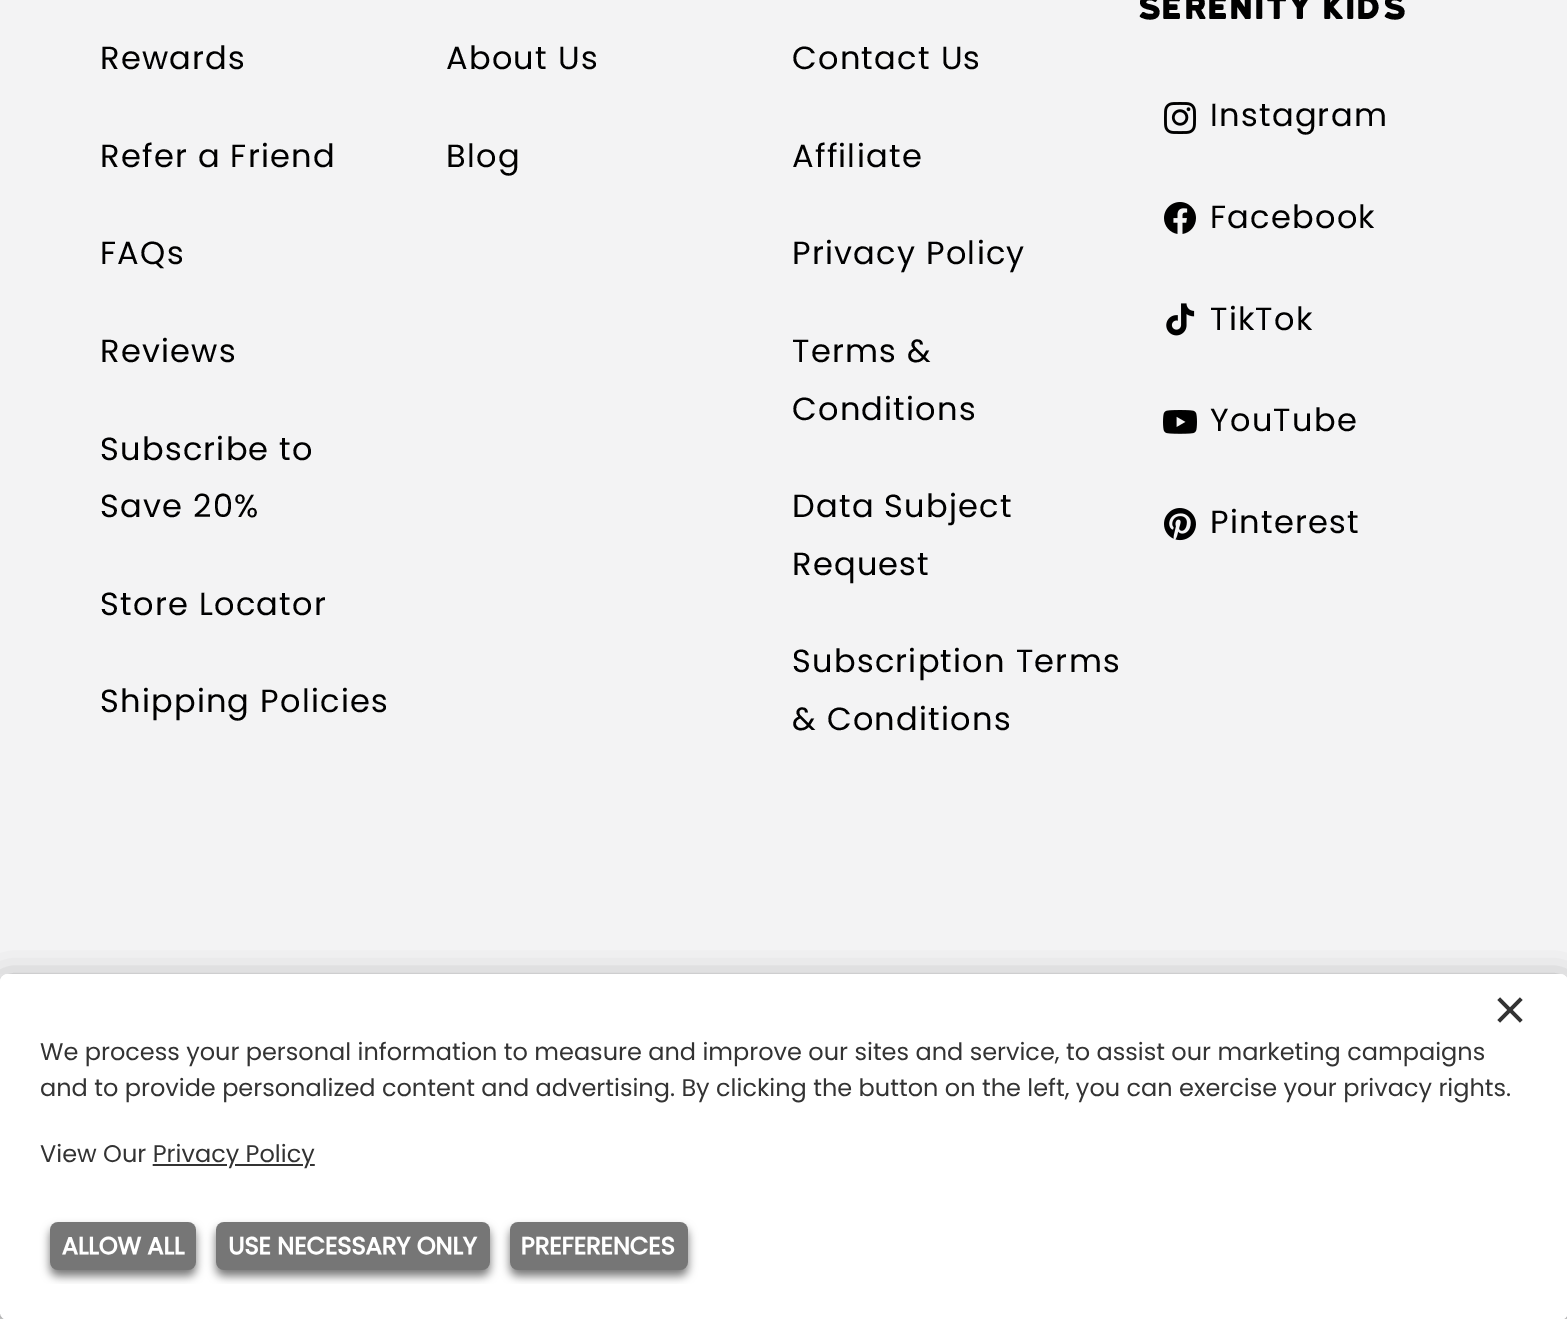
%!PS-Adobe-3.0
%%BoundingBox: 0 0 1567 1319
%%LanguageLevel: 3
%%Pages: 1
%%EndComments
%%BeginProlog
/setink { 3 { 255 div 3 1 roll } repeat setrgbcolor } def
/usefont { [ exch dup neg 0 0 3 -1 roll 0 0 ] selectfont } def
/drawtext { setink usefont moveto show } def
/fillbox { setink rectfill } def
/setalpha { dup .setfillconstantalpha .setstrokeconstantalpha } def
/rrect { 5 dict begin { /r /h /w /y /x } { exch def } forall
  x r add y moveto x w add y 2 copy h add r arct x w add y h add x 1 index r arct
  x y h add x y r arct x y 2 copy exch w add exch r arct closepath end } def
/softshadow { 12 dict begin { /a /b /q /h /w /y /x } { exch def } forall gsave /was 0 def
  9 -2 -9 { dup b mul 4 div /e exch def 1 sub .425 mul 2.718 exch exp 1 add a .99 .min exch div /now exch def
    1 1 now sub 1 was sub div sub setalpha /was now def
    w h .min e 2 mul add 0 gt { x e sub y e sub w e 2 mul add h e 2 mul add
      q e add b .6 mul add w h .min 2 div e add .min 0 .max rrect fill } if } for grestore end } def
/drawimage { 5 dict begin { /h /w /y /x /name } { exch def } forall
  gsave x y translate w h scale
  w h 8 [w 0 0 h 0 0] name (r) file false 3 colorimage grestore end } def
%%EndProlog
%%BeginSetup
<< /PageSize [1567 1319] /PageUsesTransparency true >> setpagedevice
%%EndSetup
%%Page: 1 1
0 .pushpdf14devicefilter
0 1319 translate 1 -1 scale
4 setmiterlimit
0 0 1567 1319 255 255 255 fillbox
0 0 1567 1318 243 243 244 fillbox
/Poppins-Regular 32 usefont
0 0 0 setink
100 69 moveto 1.25 0 (Rewards) ashow
100 167 moveto 1.25 0 (Refer a Friend) ashow
100 264 moveto 1.25 0 (FAQs) ashow
100 362 moveto 1.25 0 (Reviews) ashow
100 460 moveto 1.25 0 (Subscribe to) ashow
100 517 moveto 1.25 0 (Save 20%) ashow
100 615 moveto 1.25 0 (Store Locator) ashow
100 712 moveto 1.25 0 (Shipping Policies) ashow
446 69 moveto 1.25 0 (About Us) ashow
446 167 moveto 1.25 0 (Blog) ashow
792 69 moveto 1.25 0 (Contact Us) ashow
792 167 moveto 1.25 0 (Affiliate) ashow
792 264 moveto 1.25 0 (Privacy Policy) ashow
792 362 moveto 1.25 0 (Terms &) ashow
792 420 moveto 1.25 0 (Conditions) ashow
792 517 moveto 1.25 0 (Data Subject) ashow
792 575 moveto 1.25 0 (Request) ashow
792 672 moveto 1.25 0 (Subscription Terms) ashow
792 730 moveto 1.25 0 (& Conditions) ashow
(SERENITY KIDS) 1138 19 /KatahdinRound-Regular 32 0 0 0 drawtext
(assets/img1.rgb) 1164 102 32 32 drawimage
/Poppins-Regular 32 usefont
1210 126 moveto 1.25 0 (Instagram) ashow
(assets/img2.rgb) 1164 202 32 32 drawimage
1210 228 moveto 1.25 0 (Facebook) ashow
(assets/img3.rgb) 1166 303 29 33 drawimage
1210 330 moveto 1.25 0 (TikTok) ashow
(assets/img4.rgb) 1163 410 34 24 drawimage
1210 431 moveto 1.25 0 (YouTube) ashow
(assets/img5.rgb) 1164 508 32 33 drawimage
1210 533 moveto 1.25 0 (Pinterest) ashow
0 984 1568 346 8 15 0.5 softshadow
255 255 255 setink
0 974 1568 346 8 rrect fill
(assets/img6.rgb) 0 974 1567 310 drawimage
.poppdf14devicefilter showpage
%%EOF
